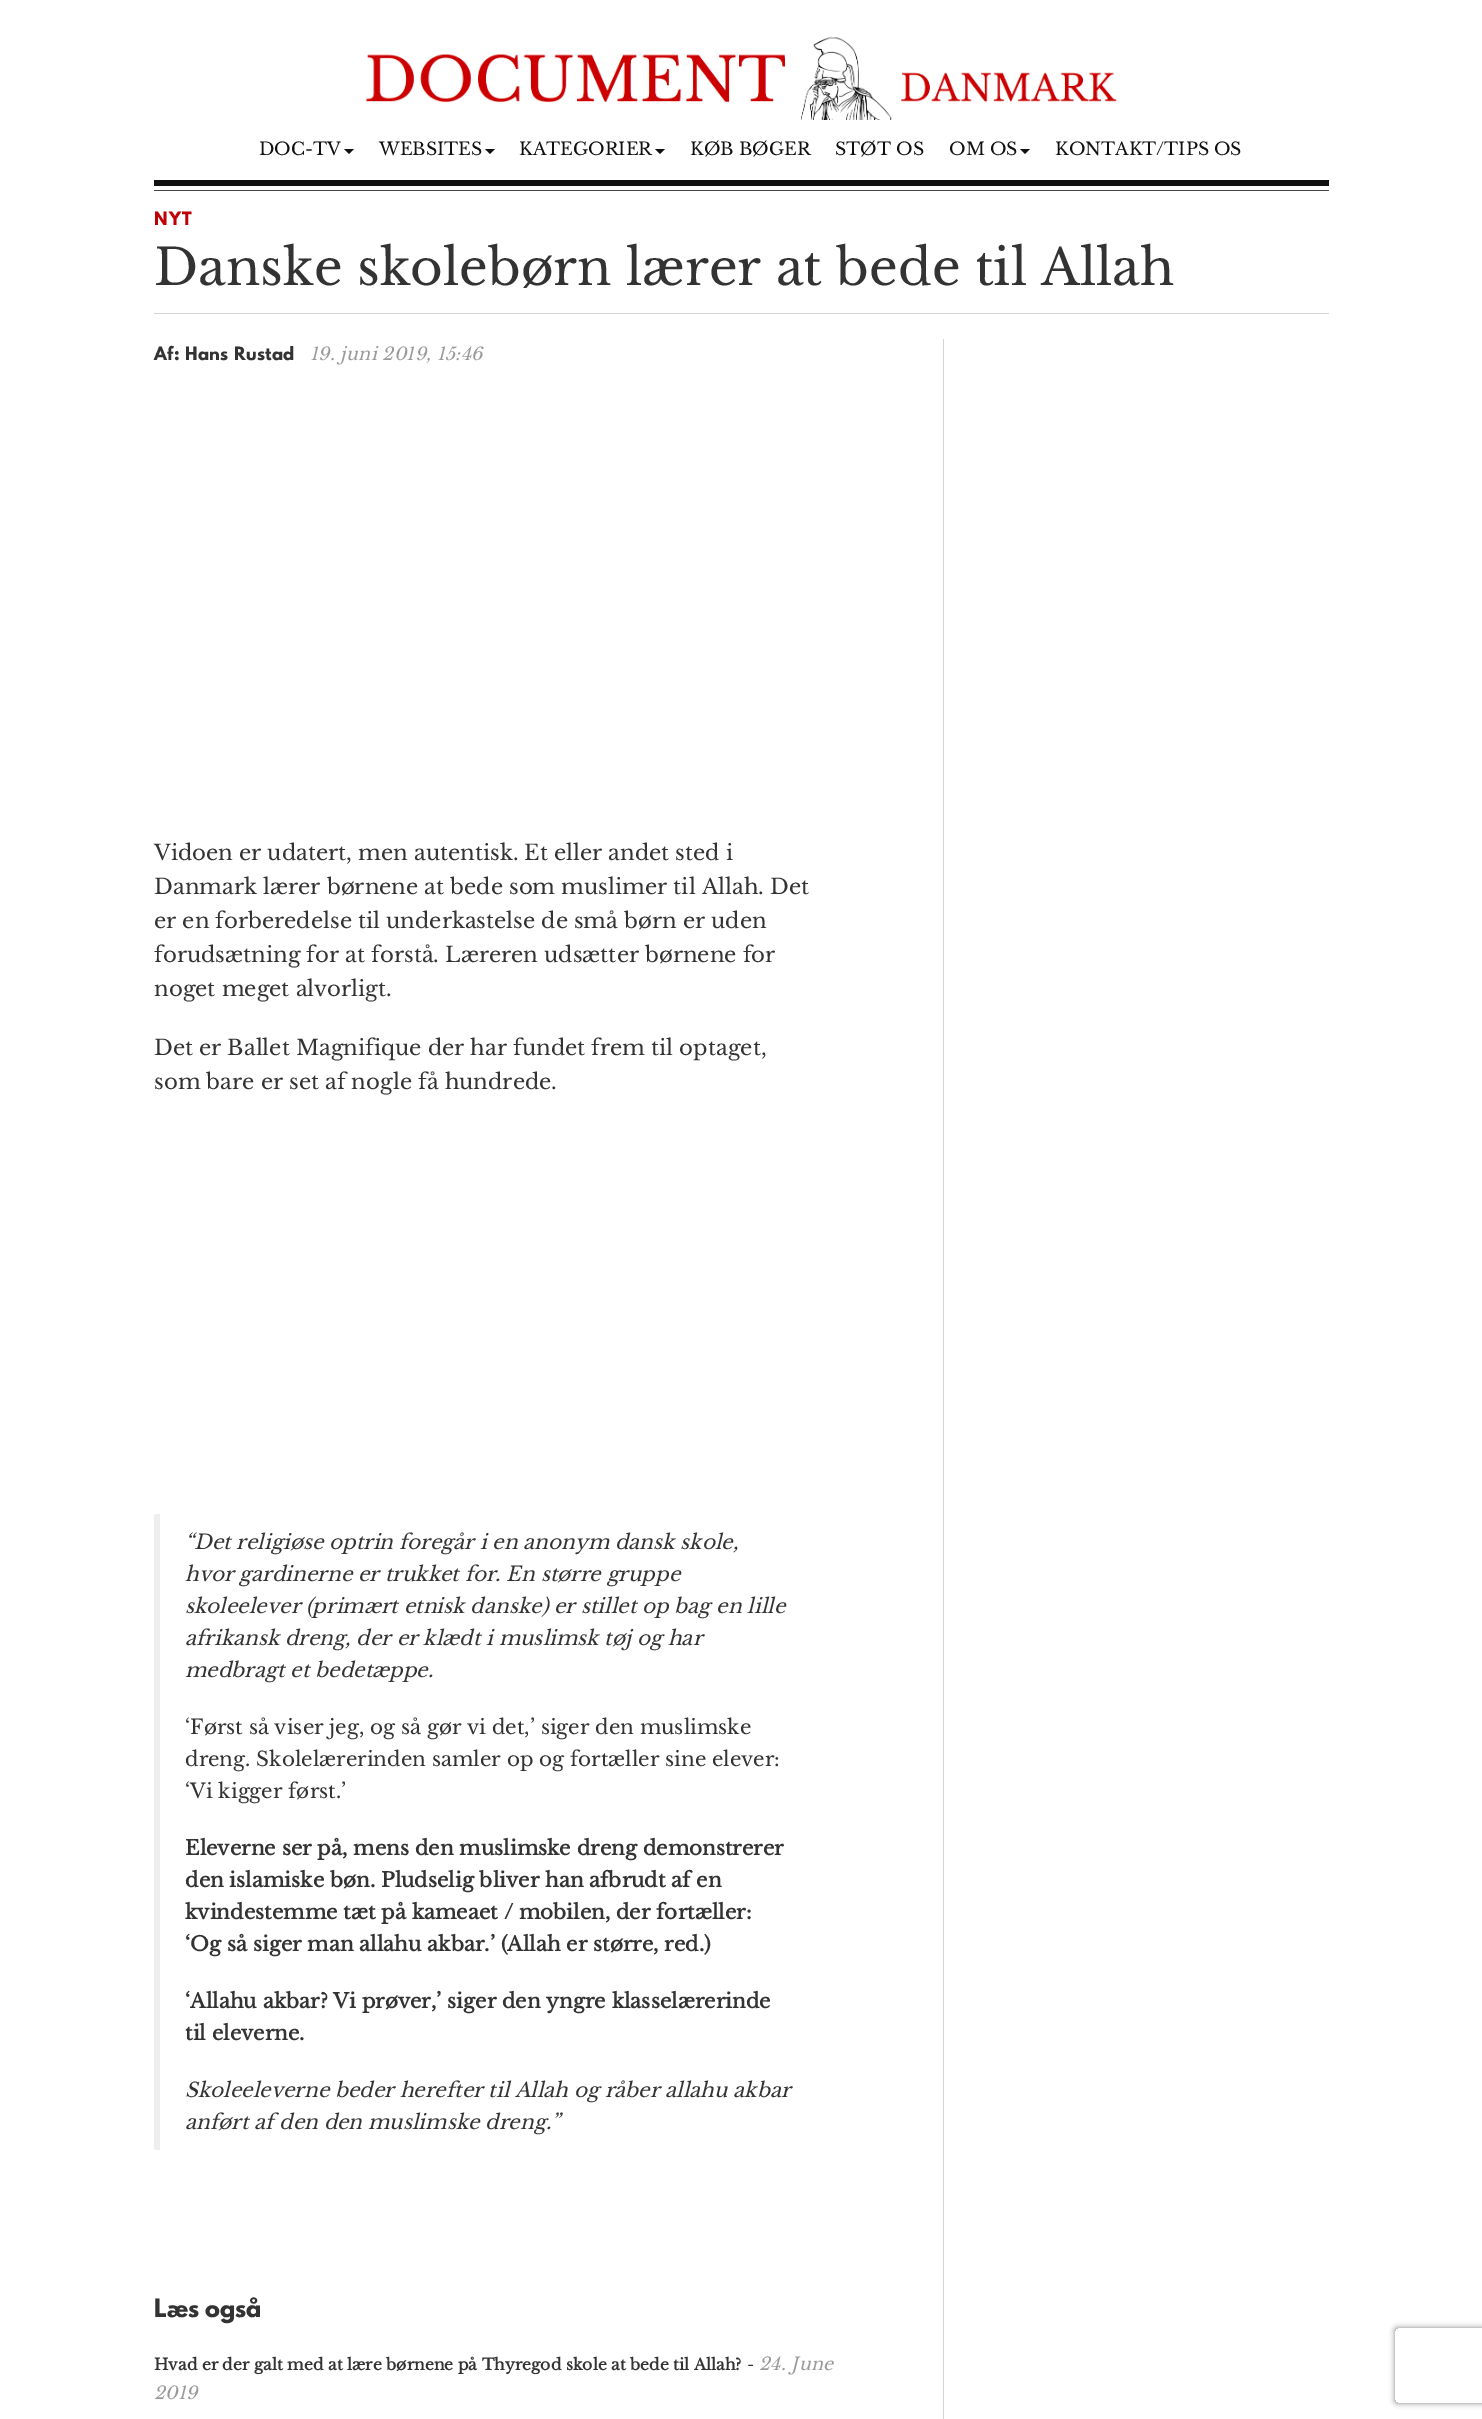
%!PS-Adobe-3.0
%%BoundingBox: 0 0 1482 2419
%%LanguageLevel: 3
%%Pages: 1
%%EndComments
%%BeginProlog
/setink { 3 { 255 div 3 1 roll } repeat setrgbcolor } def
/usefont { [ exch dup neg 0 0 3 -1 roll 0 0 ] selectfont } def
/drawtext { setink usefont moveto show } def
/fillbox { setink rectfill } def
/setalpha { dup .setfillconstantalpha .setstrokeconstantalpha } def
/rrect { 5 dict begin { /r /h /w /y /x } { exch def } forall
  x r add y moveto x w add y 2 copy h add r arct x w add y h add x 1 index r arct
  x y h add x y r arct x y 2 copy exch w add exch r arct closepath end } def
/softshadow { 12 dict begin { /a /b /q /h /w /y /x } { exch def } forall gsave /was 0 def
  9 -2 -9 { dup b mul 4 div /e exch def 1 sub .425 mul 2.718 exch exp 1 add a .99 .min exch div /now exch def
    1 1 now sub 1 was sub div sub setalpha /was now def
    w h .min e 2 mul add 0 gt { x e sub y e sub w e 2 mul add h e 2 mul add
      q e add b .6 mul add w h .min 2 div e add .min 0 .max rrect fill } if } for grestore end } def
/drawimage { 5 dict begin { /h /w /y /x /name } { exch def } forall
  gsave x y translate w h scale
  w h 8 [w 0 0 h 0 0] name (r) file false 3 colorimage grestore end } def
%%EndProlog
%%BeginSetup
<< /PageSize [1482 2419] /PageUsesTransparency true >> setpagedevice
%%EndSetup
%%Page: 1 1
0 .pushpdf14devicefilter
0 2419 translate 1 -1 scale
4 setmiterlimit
0 0 1482 2419 255 255 255 fillbox
(assets/img1.rgb) 366 37 751 83 drawimage
(DOC-TV) 259 155 /LibreBaskerville-Regular 17.5 17 17 17 drawtext
344 149 moveto 354 149 lineto 349 154 lineto closepath fill
(WEBSITES) 379 155 /LibreBaskerville-Regular 17.5 17 17 17 drawtext
485 149 moveto 495 149 lineto 490 154 lineto closepath fill
(KATEGORIER) 519 155 /LibreBaskerville-Regular 17.5 17 17 17 drawtext
655 149 moveto 665 149 lineto 660 154 lineto closepath fill
(KØB BØGER) 690 155 /LibreBaskerville-Regular 17.5 17 17 17 drawtext
(STØT OS) 835 155 /LibreBaskerville-Regular 17.5 17 17 17 drawtext
(OM OS) 949 155 /LibreBaskerville-Regular 17.5 17 17 17 drawtext
1020 149 moveto 1030 149 lineto 1025 154 lineto closepath fill
(KONTAKT/TIPS OS) 1055 155 /LibreBaskerville-Regular 17.5 17 17 17 drawtext
154 180 1175 6 17 17 17 fillbox
154 190 1175 1 68 68 68 fillbox
/LeagueSpartan-Bold 16.25 usefont
191 0 5 setink
154 225 moveto 1.5 0 (NYT) ashow
(Danske skolebørn lærer at bede til Allah) 154 285 /LibreBaskerville-Regular 50 51 51 51 drawtext
154 313 1175 1 212 212 212 fillbox
943 339 1 2080 212 212 212 fillbox
/LeagueSpartan-Bold 16.25 usefont
51 51 51 setink
154 360 moveto 0.4 0 (Af:) ashow
185 360 moveto 0.4 0 (Hans Rustad) ashow
/LibreBaskerville-Italic 17.5 usefont
153 153 153 setink
310 360 moveto 0.4 0 (19. juni 2019, 15:46) ashow
(Vidoen er udatert, men autentisk. Et eller andet sted i) 154 860 /LibreBaskerville-Regular 21.25 51 51 51 drawtext
(Danmark lærer børnene at bede som muslimer til Allah. Det) 154 894 /LibreBaskerville-Regular 21.25 51 51 51 drawtext
(er en forberedelse til underkastelse de små børn er uden) 154 928 /LibreBaskerville-Regular 21.25 51 51 51 drawtext
(forudsætning for at forstå. Læreren udsætter børnene for) 154 962 /LibreBaskerville-Regular 21.25 51 51 51 drawtext
(noget meget alvorligt.) 154 996 /LibreBaskerville-Regular 21.25 51 51 51 drawtext
(Det er Ballet Magnifique der har fundet frem til optaget,) 154 1055 /LibreBaskerville-Regular 21.25 51 51 51 drawtext
(som bare er set af nogle få hundrede.) 154 1089 /LibreBaskerville-Regular 21.25 51 51 51 drawtext
154 1514 6 636 238 238 238 fillbox
(“Det religiøse optrin foregår i en anonym dansk skole,) 185 1549 /LibreBaskerville-Italic 20 51 51 51 drawtext
(hvor gardinerne er trukket for. En større gruppe) 185 1581 /LibreBaskerville-Italic 20 51 51 51 drawtext
(skoleelever \(primært etnisk danske\) er stillet op bag en lille) 185 1613 /LibreBaskerville-Italic 20 51 51 51 drawtext
(afrikansk dreng, der er klædt i muslimsk tøj og har) 185 1645 /LibreBaskerville-Italic 20 51 51 51 drawtext
(medbragt et bedetæppe.) 185 1677 /LibreBaskerville-Italic 20 51 51 51 drawtext
(‘Først så viser jeg, og så gør vi det,’ siger den muslimske) 185 1734 /LibreBaskerville-Regular 20 51 51 51 drawtext
(dreng. Skolelærerinden samler op og fortæller sine elever:) 185 1766 /LibreBaskerville-Regular 20 51 51 51 drawtext
(‘Vi kigger først.’) 185 1798 /LibreBaskerville-Regular 20 51 51 51 drawtext
(Eleverne ser på, mens den muslimske dreng demonstrerer) 185 1855 /LibreBaskerville-Bold 20 51 51 51 drawtext
(den islamiske bøn. Pludselig bliver han afbrudt af en) 185 1887 /LibreBaskerville-Bold 20 51 51 51 drawtext
(kvindestemme tæt på kameaet / mobilen, der fortæller:) 185 1919 /LibreBaskerville-Bold 20 51 51 51 drawtext
(‘Og så siger man allahu akbar.’ \(Allah er større, red.\)) 185 1951 /LibreBaskerville-Bold 20 51 51 51 drawtext
(‘Allahu akbar? Vi prøver,’ siger den yngre klasselærerinde) 185 2008 /LibreBaskerville-Bold 20 51 51 51 drawtext
(til eleverne.) 185 2040 /LibreBaskerville-Bold 20 51 51 51 drawtext
(Skoleeleverne beder herefter til Allah og råber allahu akbar) 185 2097 /LibreBaskerville-Italic 20 51 51 51 drawtext
(anført af den den muslimske dreng.”) 185 2129 /LibreBaskerville-Italic 20 51 51 51 drawtext
(Læs også) 154 2317 /LeagueSpartan-Bold 22.5 51 51 51 drawtext
(Hvad er der galt med at lære børnene på Thyregod skole at bede til Allah?) 154 2370 /LibreBaskerville-Bold 15.6 51 51 51 drawtext
(-) 747 2370 /LibreBaskerville-Regular 15.6 51 51 51 drawtext
/LibreBaskerville-Italic 17.5 usefont
153 153 153 setink
759 2370 moveto 0.4 0 (24. June) ashow
154 2399 moveto 0.4 0 (2019) ashow
gsave
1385 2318 moveto 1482 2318 lineto 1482 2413 lineto 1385 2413 lineto closepath 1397.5 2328 moveto 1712.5 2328 lineto 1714 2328 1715 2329 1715 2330.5 curveto 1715 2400.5 lineto 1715 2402 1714 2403 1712.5 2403 curveto 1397.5 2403 lineto 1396 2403 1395 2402 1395 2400.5 curveto 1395 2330.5 lineto 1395 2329 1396 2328 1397.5 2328 curveto closepath eoclip newpath
128 128 128 setink
1395 2328 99 75 2.5 3 1 softshadow
grestore
.poppdf14devicefilter showpage
%%EOF
